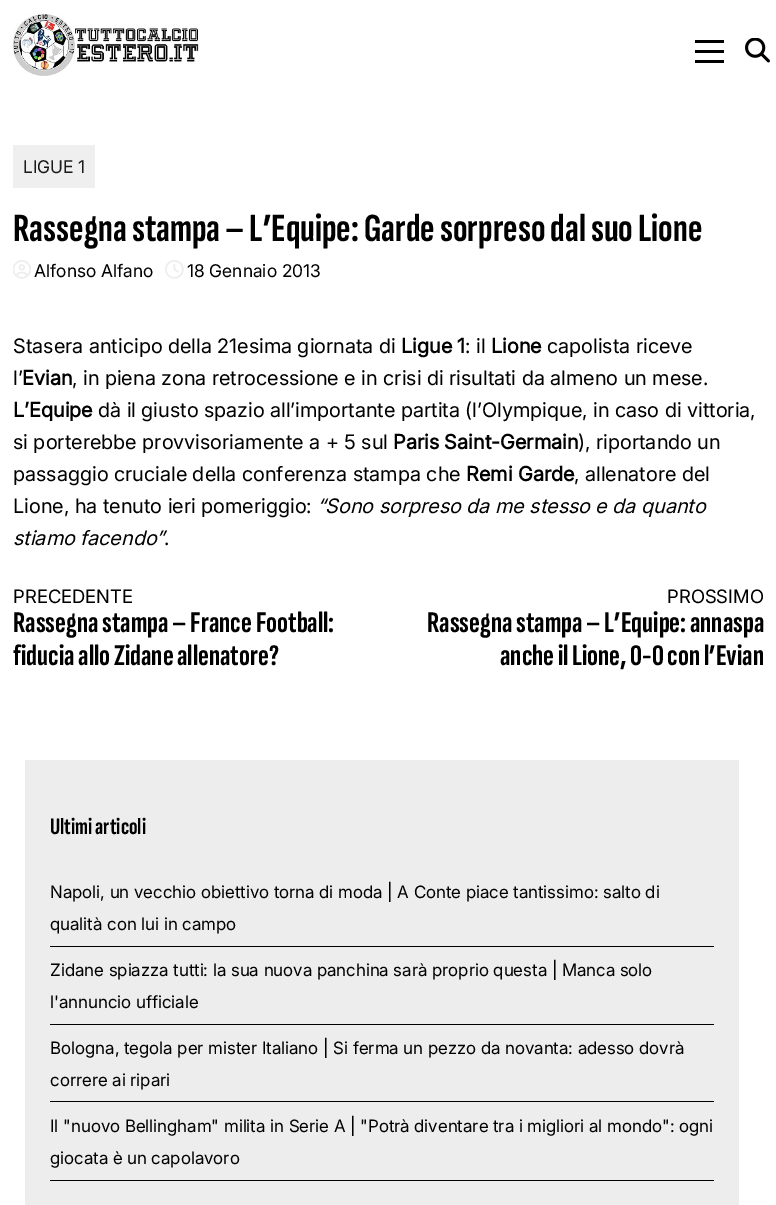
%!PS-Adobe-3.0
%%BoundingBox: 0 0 776 1205
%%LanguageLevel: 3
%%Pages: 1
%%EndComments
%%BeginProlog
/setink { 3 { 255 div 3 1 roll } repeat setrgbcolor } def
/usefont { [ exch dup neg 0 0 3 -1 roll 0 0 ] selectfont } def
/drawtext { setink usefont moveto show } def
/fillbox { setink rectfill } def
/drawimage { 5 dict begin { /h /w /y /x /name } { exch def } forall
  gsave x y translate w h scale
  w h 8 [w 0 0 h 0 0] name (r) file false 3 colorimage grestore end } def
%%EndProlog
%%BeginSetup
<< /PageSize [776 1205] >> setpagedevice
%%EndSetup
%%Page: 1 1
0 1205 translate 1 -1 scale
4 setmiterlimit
0 0 776 1205 255 255 255 fillbox
(assets/img1.rgb) 13 14 186 62 drawimage
695 50 29 3 0 0 0 fillbox
695 40 29 3 0 0 0 fillbox
695 60 29 3 0 0 0 fillbox
(assets/img2.rgb) 745 38 25 25 drawimage
13 145 82 43 239 239 239 fillbox
(LIGUE 1) 23 173 /Inter-Regular 17.5 26 26 26 drawtext
(Rassegna stampa – L’Equipe: Garde sorpreso dal suo Lione) 13 241 /SofiaSansExtraCondensed-Bold 40 0 0 0 drawtext
(assets/img3.rgb) 13 260 18 19 drawimage
(Alfonso Alfano) 34 277 /Inter-Regular 17.5 0 0 0 drawtext
(assets/img4.rgb) 165 260 19 19 drawimage
(18 Gennaio 2013) 187 277 /Inter-Regular 17.5 0 0 0 drawtext
(Stasera anticipo della 21esima giornata di) 13 353 /Inter-Regular 20 0 0 0 drawtext
(Ligue 1) 401 353 /Inter-Bold 20 0 0 0 drawtext
(: il) 465 353 /Inter-Regular 20 0 0 0 drawtext
(Lione) 491 353 /Inter-Bold 20 0 0 0 drawtext
(capolista riceve) 547 353 /Inter-Regular 20 0 0 0 drawtext
(l’) 13 385 /Inter-Regular 20 0 0 0 drawtext
(Evian) 22 385 /Inter-Bold 20 0 0 0 drawtext
(, in piena zona retrocessione e in crisi di risultati da almeno un mese.) 72 385 /Inter-Regular 20 0 0 0 drawtext
(L’Equipe) 13 417 /Inter-Bold 20 0 0 0 drawtext
(dà il giusto spazio all’importante partita \(l’Olympique, in caso di vittoria,) 98 417 /Inter-Regular 20 0 0 0 drawtext
(si porterebbe provvisoriamente a + 5 sul) 13 449 /Inter-Regular 20 0 0 0 drawtext
(Paris Saint-Germain) 393 449 /Inter-Bold 20 0 0 0 drawtext
(\), riportando un) 578 449 /Inter-Regular 20 0 0 0 drawtext
(passaggio cruciale della conferenza stampa che) 13 481 /Inter-Regular 20 0 0 0 drawtext
(Remi Garde) 466 481 /Inter-Bold 20 0 0 0 drawtext
(, allenatore del) 574 481 /Inter-Regular 20 0 0 0 drawtext
(Lione, ha tenuto ieri pomeriggio:) 13 513 /Inter-Regular 20 0 0 0 drawtext
(“Sono sorpreso da me stesso e da quanto) 317 513 /Inter-Italic 20 0 0 0 drawtext
(stiamo facendo”) 13 545 /Inter-Italic 20 0 0 0 drawtext
(.) 164 545 /Inter-Regular 20 0 0 0 drawtext
(PRECEDENTE) 13 603 /Inter-Regular 18.5 0 0 0 drawtext
(Rassegna stampa – France Football:) 13 632 /SofiaSansExtraCondensed-Bold 30 0 0 0 drawtext
(fiducia allo Zidane allenatore?) 13 665 /SofiaSansExtraCondensed-Bold 30 0 0 0 drawtext
(PROSSIMO) 667 603 /Inter-Regular 18.5 0 0 0 drawtext
(Rassegna stampa – L’Equipe: annaspa) 427 632 /SofiaSansExtraCondensed-Bold 30 0 0 0 drawtext
(anche il Lione, 0-0 con l’Evian) 500 665 /SofiaSansExtraCondensed-Bold 30 0 0 0 drawtext
25 760 714 445 237 237 237 fillbox
(Ultimi articoli) 50 834 /SofiaSansExtraCondensed-Bold 23.5 0 0 0 drawtext
50 946 664 1 0 0 0 fillbox
(Napoli, un vecchio obiettivo torna di moda | A Conte piace tantissimo: salto di) 50 898 /Inter-Regular 17 0 0 0 drawtext
(qualità con lui in campo) 50 930 /Inter-Regular 17 0 0 0 drawtext
50 1024 664 1 0 0 0 fillbox
(Zidane spiazza tutti: la sua nuova panchina sarà proprio questa | Manca solo) 50 976 /Inter-Regular 17 0 0 0 drawtext
(l'annuncio ufficiale) 50 1008 /Inter-Regular 17 0 0 0 drawtext
50 1101 664 1 0 0 0 fillbox
(Bologna, tegola per mister Italiano | Si ferma un pezzo da novanta: adesso dovrà) 50 1054 /Inter-Regular 17 0 0 0 drawtext
(correre ai ripari) 50 1086 /Inter-Regular 17 0 0 0 drawtext
50 1180 664 1 0 0 0 fillbox
(Il "nuovo Bellingham" milita in Serie A | "Potrà diventare tra i migliori al mondo": ogni) 50 1132 /Inter-Regular 17 0 0 0 drawtext
(giocata è un capolavoro) 50 1164 /Inter-Regular 17 0 0 0 drawtext
showpage
%%EOF
